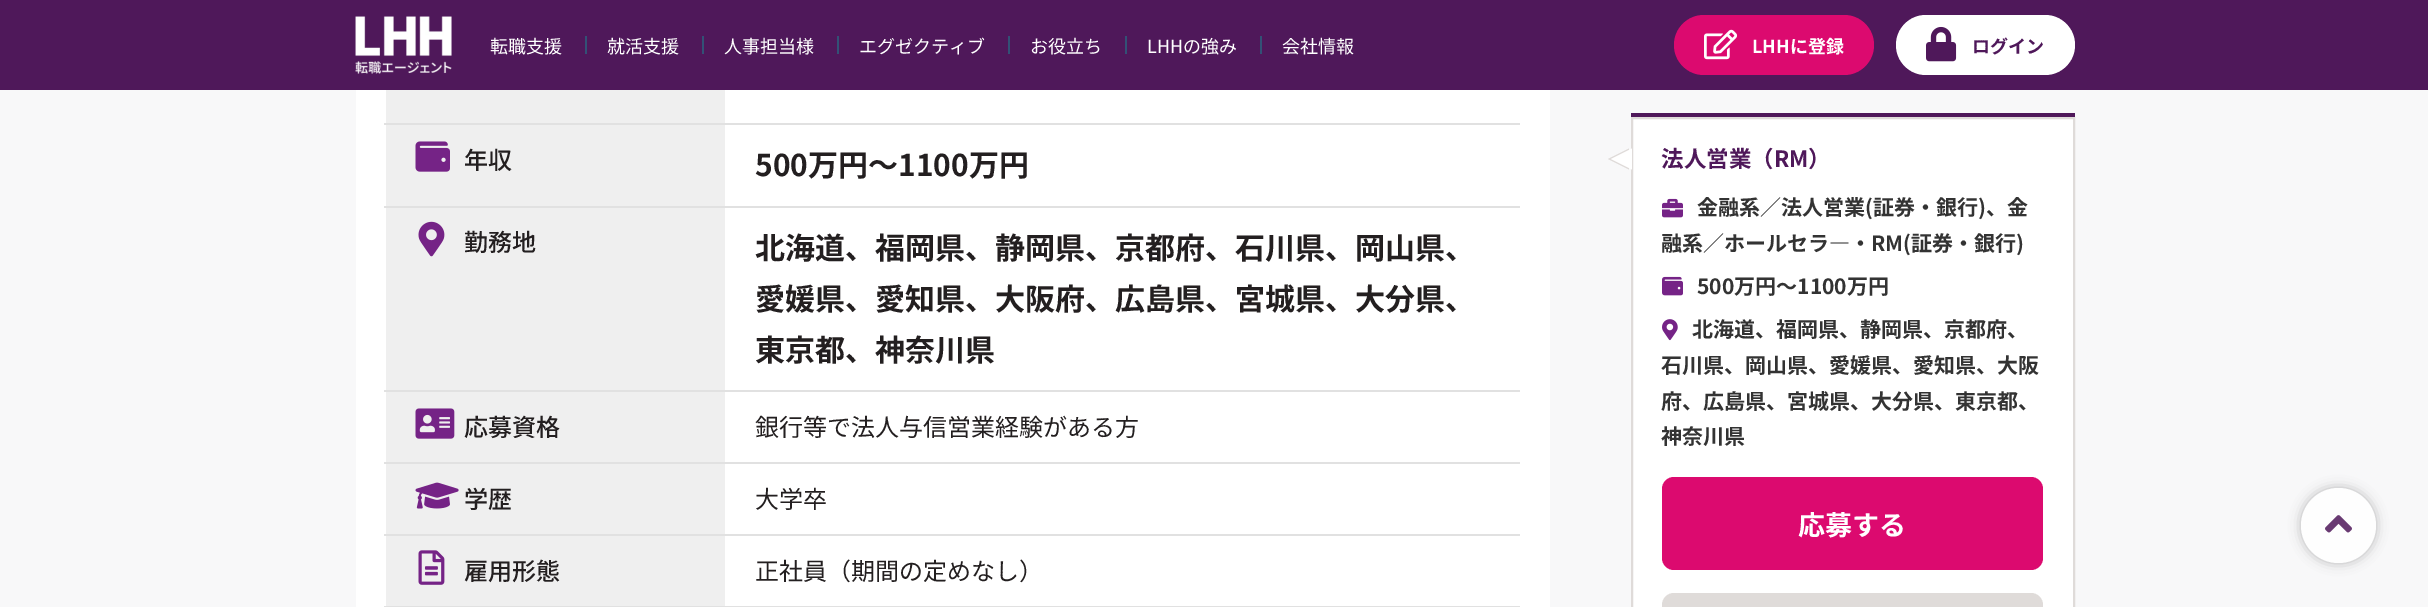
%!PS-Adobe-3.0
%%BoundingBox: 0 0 2428 607
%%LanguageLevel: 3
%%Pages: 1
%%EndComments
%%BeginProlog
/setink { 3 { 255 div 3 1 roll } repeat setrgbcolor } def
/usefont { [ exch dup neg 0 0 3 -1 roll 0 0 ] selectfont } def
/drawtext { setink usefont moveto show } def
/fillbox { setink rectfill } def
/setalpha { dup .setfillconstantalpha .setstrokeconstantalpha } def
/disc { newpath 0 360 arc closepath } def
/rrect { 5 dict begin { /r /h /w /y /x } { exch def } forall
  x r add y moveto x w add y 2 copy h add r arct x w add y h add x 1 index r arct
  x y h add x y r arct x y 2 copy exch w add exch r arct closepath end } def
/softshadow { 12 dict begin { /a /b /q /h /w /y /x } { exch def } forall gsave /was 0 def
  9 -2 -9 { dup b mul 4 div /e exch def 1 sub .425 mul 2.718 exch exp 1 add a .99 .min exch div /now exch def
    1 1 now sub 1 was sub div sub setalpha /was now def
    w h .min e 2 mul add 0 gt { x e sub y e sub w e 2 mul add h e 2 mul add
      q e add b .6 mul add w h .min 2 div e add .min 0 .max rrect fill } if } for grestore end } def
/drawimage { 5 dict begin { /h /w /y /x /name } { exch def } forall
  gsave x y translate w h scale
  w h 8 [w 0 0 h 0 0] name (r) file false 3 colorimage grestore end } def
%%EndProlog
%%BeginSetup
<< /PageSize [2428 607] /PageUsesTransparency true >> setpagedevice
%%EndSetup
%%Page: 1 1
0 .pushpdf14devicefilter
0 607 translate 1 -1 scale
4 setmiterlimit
0 0 2428 607 248 248 249 fillbox
0 0 2428 90 79 24 90 fillbox
(assets/img1.rgb) 355 16 97 58 drawimage
(転職支援) 490 53 /NotoSansJP-Regular 18 255 255 255 drawtext
585 36 2 18 51 81 118 fillbox
(就活支援) 607 53 /NotoSansJP-Regular 18 255 255 255 drawtext
702 36 2 18 51 81 118 fillbox
(人事担当様) 724 53 /NotoSansJP-Regular 18 255 255 255 drawtext
837 36 2 18 51 81 118 fillbox
(エグゼクティブ) 859 53 /NotoSansJP-Regular 18 255 255 255 drawtext
1008 36 2 18 51 81 118 fillbox
(お役立ち) 1030 53 /NotoSansJP-Regular 18 255 255 255 drawtext
1125 36 2 18 51 81 118 fillbox
(LHHの強み) 1147 53 /NotoSansJP-Regular 18 255 255 255 drawtext
1260 36 2 18 51 81 118 fillbox
(会社情報) 1282 53 /NotoSansJP-Regular 18 255 255 255 drawtext
220 10 111 setink
1674 15 200 60 30 rrect fill
(assets/img2.rgb) 1704 29 34 31 drawimage
(LHHに登録) 1752 53 /NotoSansJP-Bold 18 255 255 255 drawtext
1896 15 179 60 30 rrect fill
(assets/img3.rgb) 1926 26 31 36 drawimage
(ログイン) 1972 53 /NotoSansJP-Bold 18 79 24 90 drawtext
356 90 1194 517 255 255 255 fillbox
386 90 339 33 239 239 239 fillbox
384 123 1136 2 225 225 225 fillbox
386 125 339 81 239 239 239 fillbox
(assets/img4.rgb) 415 141 35 31 drawimage
(年収) 464 169 /NotoSansJP-Medium 24 35 31 32 drawtext
384 206 1136 2 225 225 225 fillbox
(500万円～1100万円) 755 176 /NotoSansJP-Bold 30 35 31 32 drawtext
386 208 339 182 239 239 239 fillbox
(assets/img5.rgb) 418 221 27 36 drawimage
(勤務地) 464 251 /NotoSansJP-Medium 24 35 31 32 drawtext
384 390 1136 2 225 225 225 fillbox
(北海道、福岡県、静岡県、京都府、石川県、岡山県、) 755 259 /NotoSansJP-Bold 30 35 31 32 drawtext
(愛媛県、愛知県、大阪府、広島県、宮城県、大分県、) 755 310 /NotoSansJP-Bold 30 35 31 32 drawtext
(東京都、神奈川県) 755 361 /NotoSansJP-Bold 30 35 31 32 drawtext
386 392 339 70 239 239 239 fillbox
(assets/img6.rgb) 415 408 40 31 drawimage
(応募資格) 464 436 /NotoSansJP-Medium 24 35 31 32 drawtext
384 462 1136 2 225 225 225 fillbox
(銀行等で法人与信営業経験がある方) 755 436 /NotoSansJP-Regular 24 35 31 32 drawtext
386 464 339 70 239 239 239 fillbox
(assets/img7.rgb) 415 482 44 27 drawimage
(学歴) 464 508 /NotoSansJP-Medium 24 35 31 32 drawtext
384 534 1136 2 225 225 225 fillbox
(大学卒) 755 508 /NotoSansJP-Regular 24 35 31 32 drawtext
386 536 339 70 239 239 239 fillbox
(assets/img8.rgb) 418 550 27 35 drawimage
(雇用形態) 464 580 /NotoSansJP-Medium 24 35 31 32 drawtext
384 606 1136 1 225 225 225 fillbox
(正社員（期間の定めなし）) 755 580 /NotoSansJP-Regular 24 35 31 32 drawtext
79 24 90 setink
1631 113 moveto 1631 117 lineto 2074 117 lineto 2074 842 lineto 2075 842 lineto 2075 113 lineto closepath fill
255 255 255 setink
1632 118 moveto 2074 118 lineto 2074 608 lineto 1632 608 lineto closepath gsave fill grestore
223 219 217 setink
2 setlinewidth
stroke
1629 148.5 moveto 1629 169.5 lineto 1608 159 lineto closepath fill
(法人営業（RM）) 1661 167 /NotoSansJP-Bold 22.5 79 24 90 drawtext
(assets/img9.rgb) 1662 198 21 20 drawimage
(金融系／法人営業\(証券・銀行\)、金) 1697 215 /NotoSansJP-Bold 21 51 51 51 drawtext
(融系／ホールセラ―・RM\(証券・銀行\)) 1661 251 /NotoSansJP-Bold 21 51 51 51 drawtext
(assets/img10.rgb) 1662 276 21 20 drawimage
(500万円～1100万円) 1697 294 /NotoSansJP-Bold 21 51 51 51 drawtext
(assets/img11.rgb) 1662 319 16 22 drawimage
(北海道、福岡県、静岡県、京都府、) 1692 337 /NotoSansJP-Bold 21 51 51 51 drawtext
(石川県、岡山県、愛媛県、愛知県、大阪) 1661 373 /NotoSansJP-Bold 21 51 51 51 drawtext
(府、広島県、宮城県、大分県、東京都、) 1661 409 /NotoSansJP-Bold 21 51 51 51 drawtext
(神奈川県) 1661 444 /NotoSansJP-Bold 21 51 51 51 drawtext
220 10 111 setink
1662 477 381 93 12 rrect fill
(応募する) 1798 535 /NotoSansJP-Bold 27 255 255 255 drawtext
223 219 217 setink
1662 593 381 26 12 rrect fill
255 255 255 setink
1632 148.5 moveto 1632 169.5 lineto 1611 159 lineto closepath fill
37 37 37 setink
2301 488 75 75 37.5 6 0.3 softshadow
254 254 254 setink
2338.5 525.5 37.5 disc fill
(assets/img12.rgb) 2325 515 27 18 drawimage
.poppdf14devicefilter showpage
%%EOF
